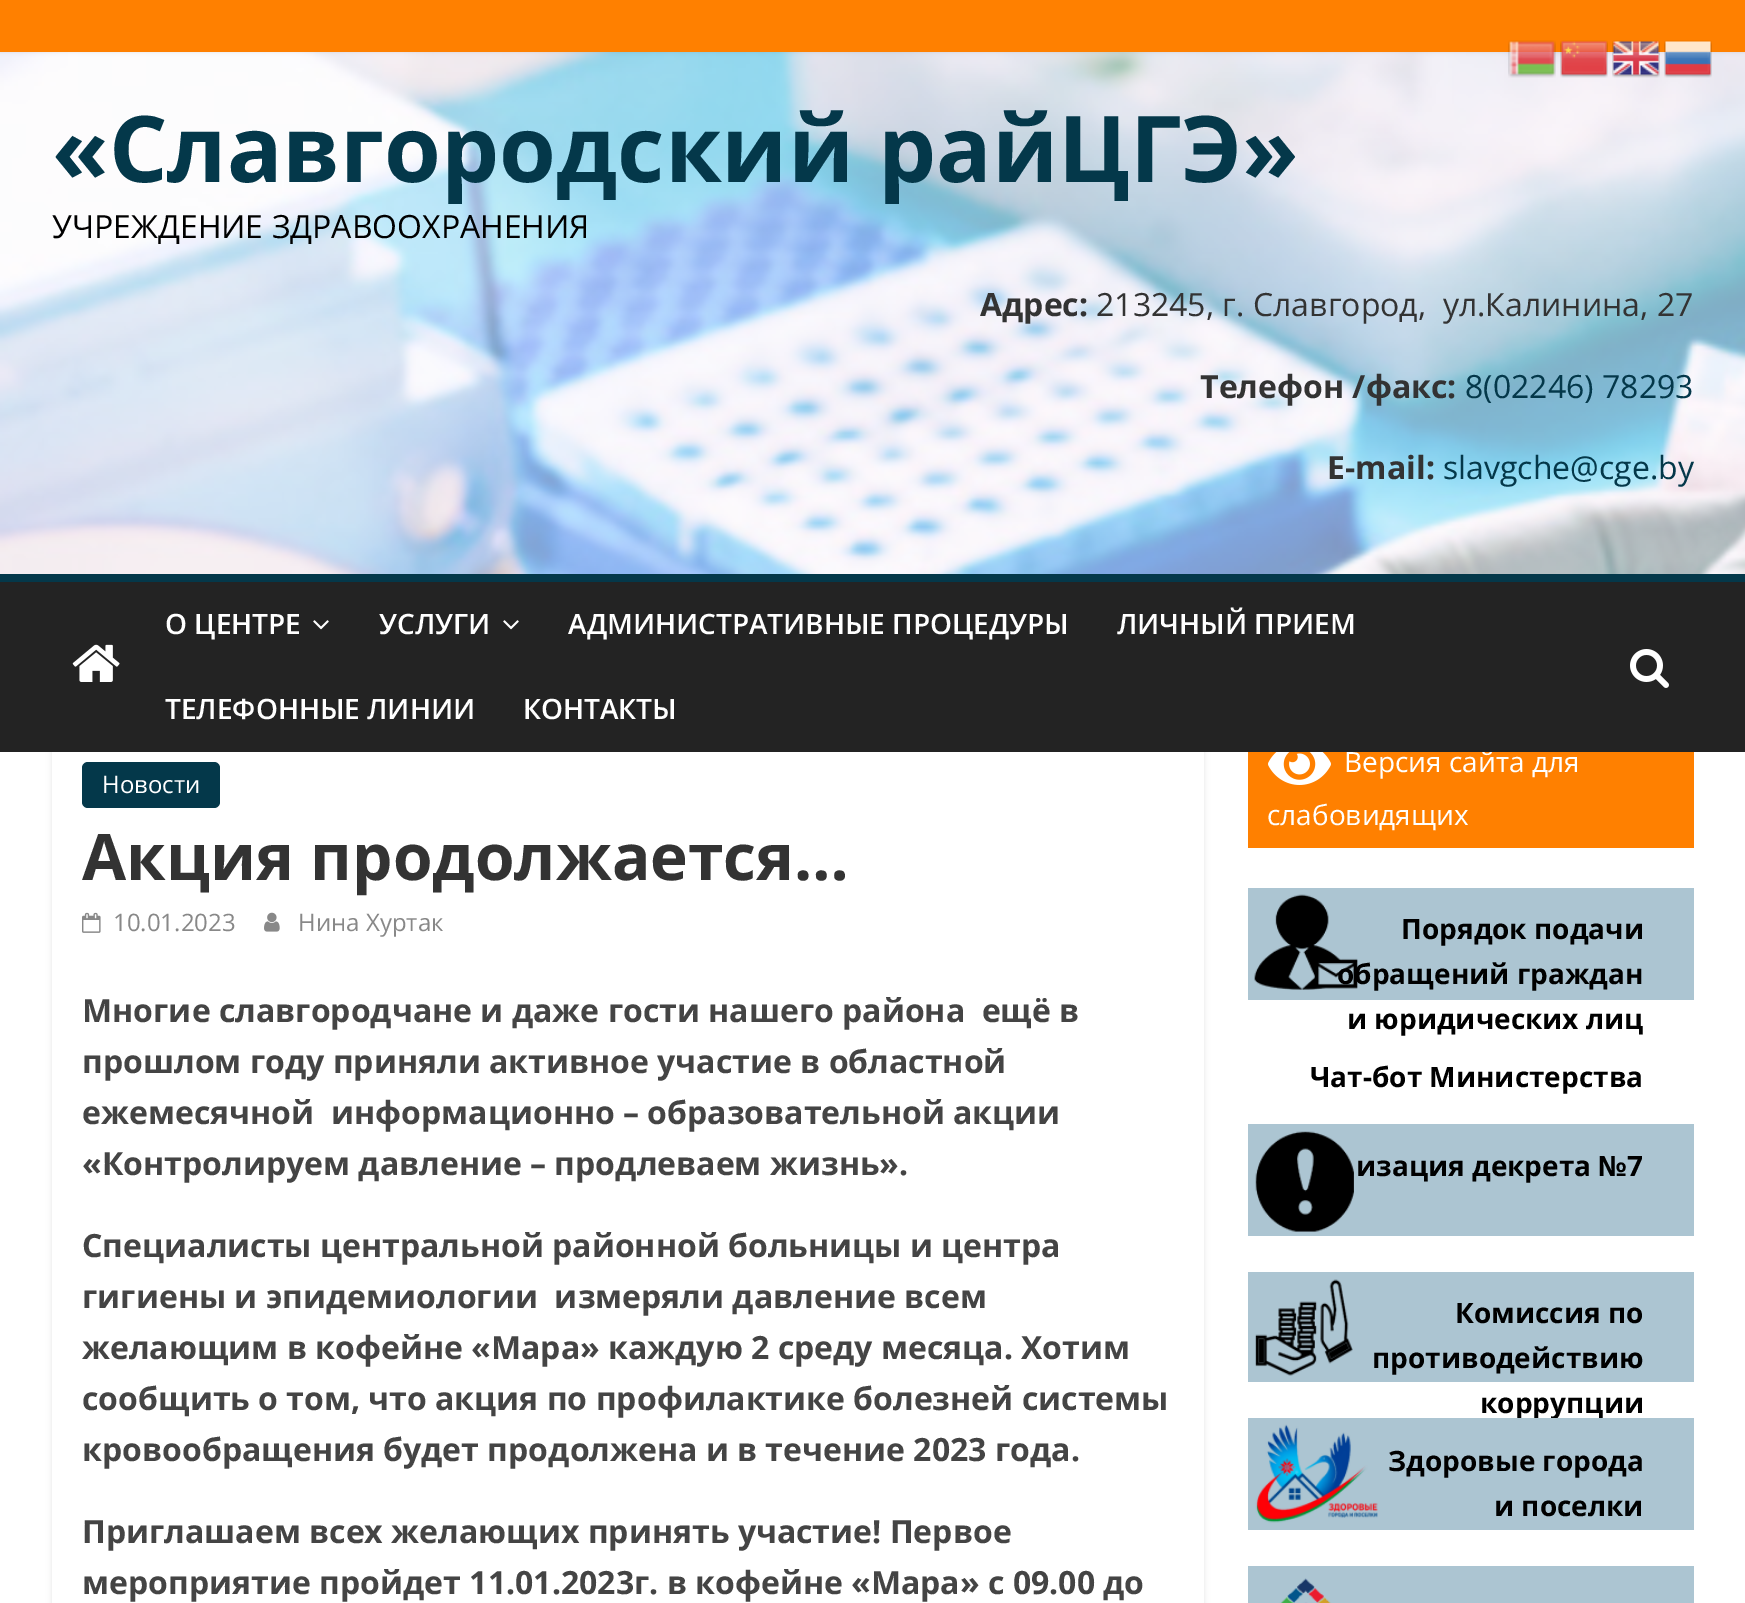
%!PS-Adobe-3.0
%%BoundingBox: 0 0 1745 1603
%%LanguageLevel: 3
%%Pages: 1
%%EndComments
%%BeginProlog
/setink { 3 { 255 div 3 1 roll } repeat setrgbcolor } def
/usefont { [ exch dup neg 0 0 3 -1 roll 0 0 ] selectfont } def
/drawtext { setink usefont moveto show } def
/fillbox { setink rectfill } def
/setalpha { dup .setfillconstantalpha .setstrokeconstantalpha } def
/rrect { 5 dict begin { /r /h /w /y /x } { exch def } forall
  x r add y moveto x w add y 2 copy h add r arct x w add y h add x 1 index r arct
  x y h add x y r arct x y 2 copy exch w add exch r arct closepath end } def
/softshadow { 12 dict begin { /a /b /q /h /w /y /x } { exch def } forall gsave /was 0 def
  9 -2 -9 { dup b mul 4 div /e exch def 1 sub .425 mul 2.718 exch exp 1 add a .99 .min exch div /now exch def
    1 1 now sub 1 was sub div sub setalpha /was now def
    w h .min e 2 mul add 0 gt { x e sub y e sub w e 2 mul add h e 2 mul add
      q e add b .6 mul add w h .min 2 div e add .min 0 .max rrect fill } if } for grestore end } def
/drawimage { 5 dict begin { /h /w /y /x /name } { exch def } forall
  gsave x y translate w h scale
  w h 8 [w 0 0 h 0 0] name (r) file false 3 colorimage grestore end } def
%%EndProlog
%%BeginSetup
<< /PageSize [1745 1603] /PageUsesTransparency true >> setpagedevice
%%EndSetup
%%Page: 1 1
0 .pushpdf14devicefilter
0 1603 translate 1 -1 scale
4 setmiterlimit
0 0 1745 1603 255 255 255 fillbox
(assets/img5.rgb) 0 52 1745 522 drawimage
0 0 0 setink
0 0 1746 52 0 2 0.1 softshadow
0 0 1745 52 255 128 0 fillbox
(assets/img1.rgb) 1508 40 48 38 drawimage
(assets/img2.rgb) 1560 40 48 38 drawimage
(assets/img3.rgb) 1612 40 48 38 drawimage
(assets/img4.rgb) 1664 40 48 38 drawimage
(«Славгородский райЦГЭ») 52 182 /OpenSans-Bold 92 4 56 74 drawtext
(УЧРЕЖДЕНИЕ ЗДРАВООХРАНЕНИЯ) 52 238 /OpenSans-Regular 32 0 0 0 drawtext
(Адрес:) 980 316 /OpenSans-Bold 32 51 51 51 drawtext
(213245, г. Славгород,  ул.Калинина, 27) 1096 316 /OpenSans-Regular 32 51 51 51 drawtext
(Телефон /факс:) 1200 398 /OpenSans-Bold 32 51 51 51 drawtext
(8\(02246\) 78293) 1465 398 /OpenSans-Regular 32 4 56 74 drawtext
(E-mail:) 1327 479 /OpenSans-Bold 32 51 51 51 drawtext
(slavgche@cge.by) 1443 479 /OpenSans-Regular 32 4 56 74 drawtext
gsave
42 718 moveto 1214 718 lineto 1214 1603 lineto 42 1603 lineto closepath 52 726 moveto 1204 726 lineto 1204 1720 lineto 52 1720 lineto closepath eoclip newpath
0 0 0 setink
52 728 1152 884 0 3 0.1 softshadow
grestore
1248 752 446 96 255 128 0 fillbox
(Версия сайта для) 1344 772 /OpenSans-Regular 28 255 255 255 drawtext
0 582 1745 170 35 35 35 fillbox
0 574 1745 8 4 56 74 fillbox
(assets/img6.rgb) 72 644 48 38 drawimage
(О ЦЕНТРЕ) 165 634 /OpenSans-SemiBold 28 255 255 255 drawtext
(assets/img7.rgb) 313 620 16 10 drawimage
(УСЛУГИ) 379 634 /OpenSans-SemiBold 28 255 255 255 drawtext
(assets/img7.rgb) 503 620 16 10 drawimage
(АДМИНИСТРАТИВНЫЕ ПРОЦЕДУРЫ) 568 634 /OpenSans-SemiBold 28 255 255 255 drawtext
(ЛИЧНЫЙ ПРИЕМ) 1117 634 /OpenSans-SemiBold 28 255 255 255 drawtext
(ТЕЛЕФОННЫЕ ЛИНИИ) 165 719 /OpenSans-SemiBold 28 255 255 255 drawtext
(КОНТАКТЫ) 523 719 /OpenSans-SemiBold 28 255 255 255 drawtext
(assets/img8.rgb) 1630 649 39 39 drawimage
4 56 74 setink
82 762 138 46 6 rrect fill
(Новости) 102 793 /OpenSans-Regular 24 255 255 255 drawtext
(Акция продолжается…) 82 880 /OpenSans-Bold 64 51 51 51 drawtext
(assets/img9.rgb) 82 912 19 21 drawimage
(10.01.2023) 113 931 /OpenSans-Regular 24 136 136 136 drawtext
(assets/img10.rgb) 264 912 16 20 drawimage
(Нина Хуртак) 298 931 /OpenSans-Regular 24 136 136 136 drawtext
(Многие славгородчане и даже гости нашего района  ещё в) 82 1022 /OpenSans-Bold 32 68 68 68 drawtext
(прошлом году приняли активное участие в областной) 82 1073 /OpenSans-Bold 32 68 68 68 drawtext
(ежемесячной) 82 1124 /OpenSans-Bold 32 68 68 68 drawtext
(информационно – образовательной акции) 331 1124 /OpenSans-Bold 32 68 68 68 drawtext
(«Контролируем давление – продлеваем жизнь».) 82 1175 /OpenSans-Bold 32 68 68 68 drawtext
(Специалисты центральной районной больницы и центра) 82 1257 /OpenSans-Bold 32 68 68 68 drawtext
(гигиены и эпидемиологии  измеряли давление всем) 82 1308 /OpenSans-Bold 32 68 68 68 drawtext
(желающим в кофейне «Мара» каждую 2 среду месяца. Хотим) 82 1359 /OpenSans-Bold 32 68 68 68 drawtext
(сообщить о том, что акция по профилактике болезней системы) 82 1410 /OpenSans-Bold 32 68 68 68 drawtext
(кровообращения будет продолжена и в течение 2023 года.) 82 1461 /OpenSans-Bold 32 68 68 68 drawtext
(Приглашаем всех желающих принять участие! Первое) 82 1543 /OpenSans-Bold 32 68 68 68 drawtext
(мероприятие пройдет 11.01.2023г. в кофейне «Мара» с 09.00 до) 82 1594 /OpenSans-Bold 32 68 68 68 drawtext
(assets/img11.rgb) 1268 752 63 33 drawimage
(слабовидящих) 1267 825 /OpenSans-Regular 28 255 255 255 drawtext
(assets/img12.rgb) 1248 888 446 112 drawimage
(Порядок подачи) 1401 939 /OpenSans-Bold 28 0 0 0 drawtext
(обращений граждан) 1337 984 /OpenSans-Bold 28 0 0 0 drawtext
(и юридических лиц) 1347 1029 /OpenSans-Bold 28 0 0 0 drawtext
(Чат-бот Министерства) 1310 1087 /OpenSans-Bold 28 0 0 0 drawtext
(assets/img13.rgb) 1248 1124 446 112 drawimage
(изация декрета №7) 1356 1176 /OpenSans-Bold 28 0 0 0 drawtext
(assets/img14.rgb) 1248 1272 446 110 drawimage
(Комиссия по) 1455 1323 /OpenSans-Bold 28 0 0 0 drawtext
(противодействию) 1372 1368 /OpenSans-Bold 28 0 0 0 drawtext
(коррупции) 1480 1413 /OpenSans-Bold 28 0 0 0 drawtext
(assets/img15.rgb) 1248 1418 446 112 drawimage
(Здоровые города) 1388 1471 /OpenSans-Bold 28 0 0 0 drawtext
(и поселки) 1494 1516 /OpenSans-Bold 28 0 0 0 drawtext
(assets/img16.rgb) 1248 1566 446 37 drawimage
.poppdf14devicefilter showpage
%%EOF
